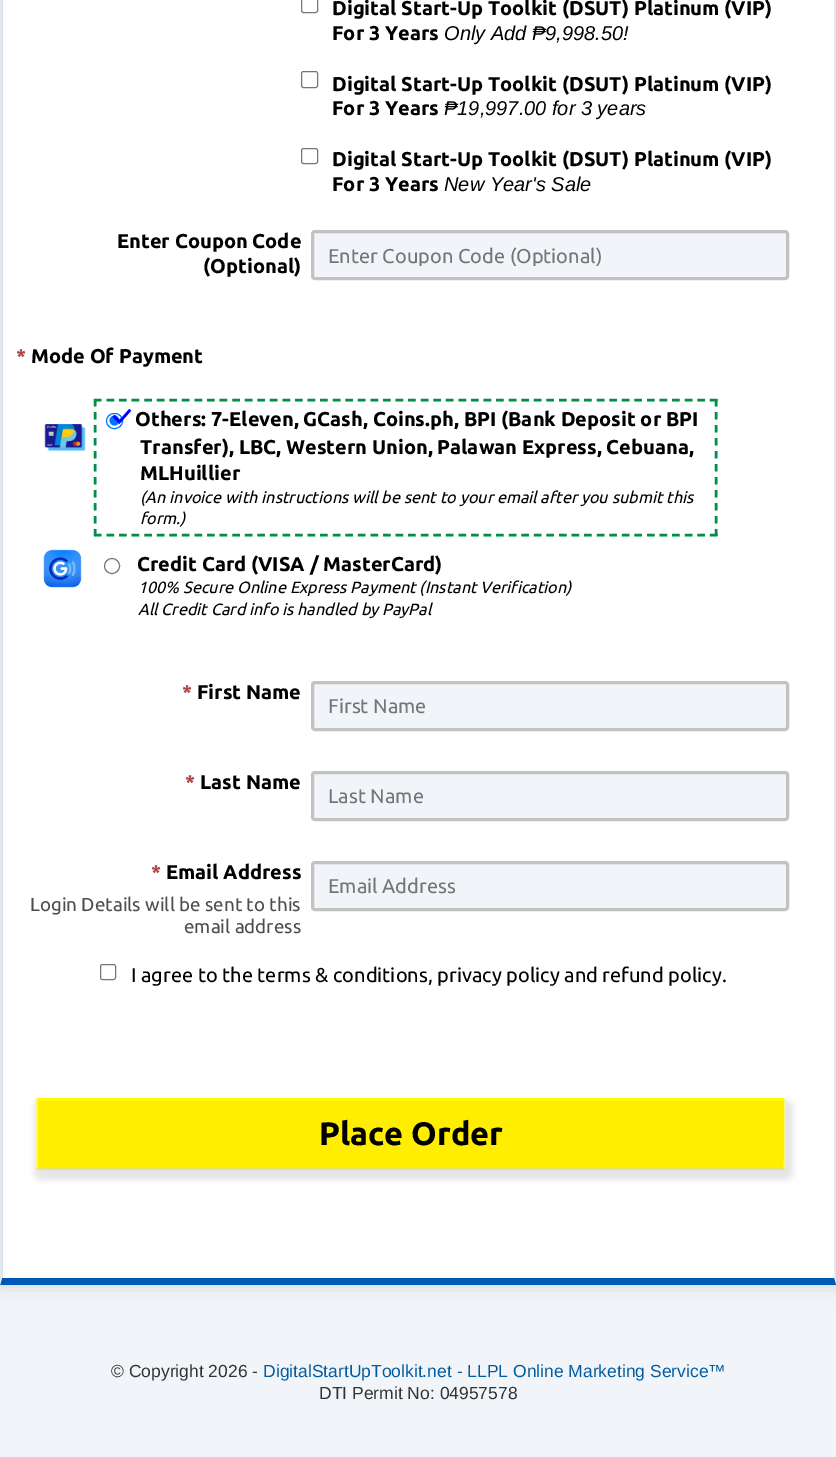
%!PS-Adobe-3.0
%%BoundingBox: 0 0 836 1457
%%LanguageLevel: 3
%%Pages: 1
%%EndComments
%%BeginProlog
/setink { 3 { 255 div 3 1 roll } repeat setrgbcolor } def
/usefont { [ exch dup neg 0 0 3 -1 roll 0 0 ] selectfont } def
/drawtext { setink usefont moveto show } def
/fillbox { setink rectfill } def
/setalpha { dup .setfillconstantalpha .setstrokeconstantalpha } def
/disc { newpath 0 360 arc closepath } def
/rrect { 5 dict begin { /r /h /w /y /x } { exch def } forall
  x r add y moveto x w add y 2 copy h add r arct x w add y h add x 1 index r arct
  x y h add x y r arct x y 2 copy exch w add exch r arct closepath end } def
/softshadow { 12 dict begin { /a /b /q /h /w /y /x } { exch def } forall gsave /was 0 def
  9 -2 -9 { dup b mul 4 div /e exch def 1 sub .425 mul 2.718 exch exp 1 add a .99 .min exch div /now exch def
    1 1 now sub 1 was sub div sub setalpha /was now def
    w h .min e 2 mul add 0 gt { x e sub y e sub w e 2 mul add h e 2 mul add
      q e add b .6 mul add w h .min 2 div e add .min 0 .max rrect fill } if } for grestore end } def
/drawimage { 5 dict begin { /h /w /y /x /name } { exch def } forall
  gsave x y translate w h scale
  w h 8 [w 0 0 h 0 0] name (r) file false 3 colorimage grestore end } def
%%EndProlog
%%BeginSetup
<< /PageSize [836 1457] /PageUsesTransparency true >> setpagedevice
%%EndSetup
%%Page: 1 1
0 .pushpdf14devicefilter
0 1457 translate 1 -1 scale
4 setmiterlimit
0 0 836 1457 241 245 249 fillbox
0 0 0 setink
0 -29 836 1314 0 9.5 0.13 softshadow
3 0 831 1278 255 255 255 fillbox
225 232 240 setink
836 -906 moveto 836 1285 lineto 834 1278 lineto 834 -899 lineto closepath fill
0 88 183 setink
836 1285 moveto 0 1285 lineto 2 1278 lineto 834 1278 lineto closepath fill
225 232 240 setink
0 1285 moveto 0 -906 lineto 2 -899 lineto 2 1278 lineto closepath fill
118 118 118 setink
301.5 -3.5 16 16 2 rrect stroke
(Digital Start-Up Toolkit \(DSUT\) Platinum \(VIP\)) 332 15 /Ubuntu-Bold 20 0 0 0 drawtext
(For 3 Years) 332 40 /Ubuntu-Bold 20 0 0 0 drawtext
(Only Add ₱9,998.50!) 444 40 /LiberationSans-Italic 20 0 0 0 drawtext
118 118 118 setink
301.5 71.5 16 16 2 rrect stroke
(Digital Start-Up Toolkit \(DSUT\) Platinum \(VIP\)) 332 91 /Ubuntu-Bold 20 0 0 0 drawtext
(For 3 Years) 332 115 /Ubuntu-Bold 20 0 0 0 drawtext
(₱19,997.00 for 3 years) 444 115 /LiberationSans-Italic 20 0 0 0 drawtext
118 118 118 setink
301.5 148.5 16 15 2 rrect stroke
(Digital Start-Up Toolkit \(DSUT\) Platinum \(VIP\)) 332 166 /Ubuntu-Bold 20 0 0 0 drawtext
(For 3 Years) 332 191 /Ubuntu-Bold 20 0 0 0 drawtext
(New Year's Sale) 444 191 /LiberationSans-Italic 20 0 0 0 drawtext
(Enter Coupon Code) 117 248 /Ubuntu-Bold 20 0 0 0 drawtext
(\(Optional\)) 203 273 /Ubuntu-Bold 20 0 0 0 drawtext
241 245 249 setink
312.5 231.5 475 47 2.5 rrect gsave fill grestore
194 194 194 setink
3 setlinewidth
stroke
gsave
329 244 442 22 rectclip
(Enter Coupon Code \(Optional\)) 328 263 /Ubuntu-Regular 20 117 117 117 drawtext
grestore
(*) 16 363 /Ubuntu-Bold 20 169 68 66 drawtext
(Mode Of Payment) 31 363 /Ubuntu-Bold 20 0 0 0 drawtext
0 142 72 setink
2.5 setlinewidth
[7.5 5.07] 0 setdash
94 400 moveto 717.5 400 lineto stroke
[7.5 5.5] 0 setdash
716 399 moveto 716 536 lineto stroke
[7.5 5.07] 0 setdash
94 535 moveto 717.5 535 lineto stroke
[7.5 5.5] 0 setdash
95 399 moveto 95 536 lineto stroke
0 117 255 setink
1 setlinewidth
[] 0 setdash
106.5 413.5 16 15 7.5 rrect stroke
114.5 420.5 5 disc fill
(✓) 112 426 /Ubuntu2-Bold 28 0 0 255 drawtext
(Others: 7-Eleven, GCash, Coins.ph, BPI \(Bank Deposit or BPI) 135 426 /Ubuntu-Bold 20 0 0 0 drawtext
(Transfer\), LBC, Western Union, Palawan Express, Cebuana,) 140 454 /Ubuntu-Bold 20 0 0 0 drawtext
(MLHuillier) 140 480 /Ubuntu-Bold 20 0 0 0 drawtext
(assets/img1.rgb) 44 424 42 27 drawimage
(\(An invoice with instructions will be sent to your email after you submit this) 140 503 /Ubuntu-Italic 16.25 0 0 0 drawtext
(form.\)) 140 524 /Ubuntu-Italic 16.25 0 0 0 drawtext
(assets/img2.rgb) 43 549 39 39 drawimage
118 118 118 setink
112 566 7.5 disc stroke
(Credit Card \(VISA / MasterCard\)) 137 571 /Ubuntu-Bold 20 0 0 0 drawtext
(100% Secure Online Express Payment \(Instant Verification\)) 138 593 /Ubuntu-Italic 16.25 0 0 0 drawtext
(All Credit Card info is handled by PayPal) 138 615 /Ubuntu-Italic 16.25 0 0 0 drawtext
(*) 182 699 /Ubuntu-Bold 20 169 68 66 drawtext
(First Name) 197 699 /Ubuntu-Bold 20 0 0 0 drawtext
241 245 249 setink
312.5 682.5 475 47 2.5 rrect gsave fill grestore
194 194 194 setink
3 setlinewidth
stroke
(First Name) 328 713 /Ubuntu-Regular 20 117 117 117 drawtext
(*) 185 789 /Ubuntu-Bold 20 169 68 66 drawtext
(Last Name) 200 789 /Ubuntu-Bold 20 0 0 0 drawtext
241 245 249 setink
312.5 772.5 475 47 2.5 rrect gsave fill grestore
194 194 194 setink
stroke
(Last Name) 328 803 /Ubuntu-Regular 20 117 117 117 drawtext
(*) 151 879 /Ubuntu-Bold 20 169 68 66 drawtext
(Email Address) 166 879 /Ubuntu-Bold 20 0 0 0 drawtext
(Login Details will be sent to this) 30 911 /Ubuntu-Regular 18.75 77 77 77 drawtext
(email address) 184 933 /Ubuntu-Regular 18.75 77 77 77 drawtext
241 245 249 setink
312.5 862.5 475 47 2.5 rrect gsave fill grestore
194 194 194 setink
stroke
(Email Address) 328 893 /Ubuntu-Regular 20 117 117 117 drawtext
118 118 118 setink
1 setlinewidth
100.5 964.5 15 15 2 rrect stroke
(I agree to the terms & conditions, privacy policy and refund policy.) 131 982 /Ubuntu-Regular 20 0 0 0 drawtext
34 1100 759 80 8 3 0.1 softshadow
255 238 0 setink
39 1101 moveto 784 1101 lineto 784 1166 lineto 784 1167 783 1168 782 1168 curveto 39 1168 lineto 38 1168 38 1167 38 1166 curveto 38 1101 lineto closepath fill
255 250 0 setink
39 1098 moveto 36 1099 lineto 38 1102 lineto 38 1101 lineto 784 1101 lineto 785 1099 lineto 782 1098 lineto closepath fill
255 244 130 setink
785 1099 moveto 786 1101 lineto 786 1166 lineto 786 1167 786 1168 785 1169 curveto 783 1167 lineto 785 1166 784 1108 784 1101 curveto closepath fill
236 225 114 setink
39 1170 moveto 782 1170 lineto 783 1170 784 1170 785 1169 curveto 783 1167 lineto 782 1168 lineto 39 1168 lineto 38 1167 lineto 36 1169 lineto closepath fill
255 244 130 setink
35 1101 moveto 35 1166 lineto 36 1169 lineto 38 1167 lineto 38 1102 lineto 36 1099 lineto closepath fill
(Place Order) 319 1145 /Ubuntu-Bold 32.5 0 0 0 drawtext
(© Copyright 2026 -) 111 1377 /LiberationSans-Regular 17.5 51 51 51 drawtext
(DigitalStartUpToolkit.net - LLPL Online Marketing Service™) 263 1377 /LiberationSans-Regular 17.5 4 91 159 drawtext
(DTI Permit No: 04957578) 319 1399 /LiberationSans-Regular 17.5 51 51 51 drawtext
.poppdf14devicefilter showpage
%%EOF
